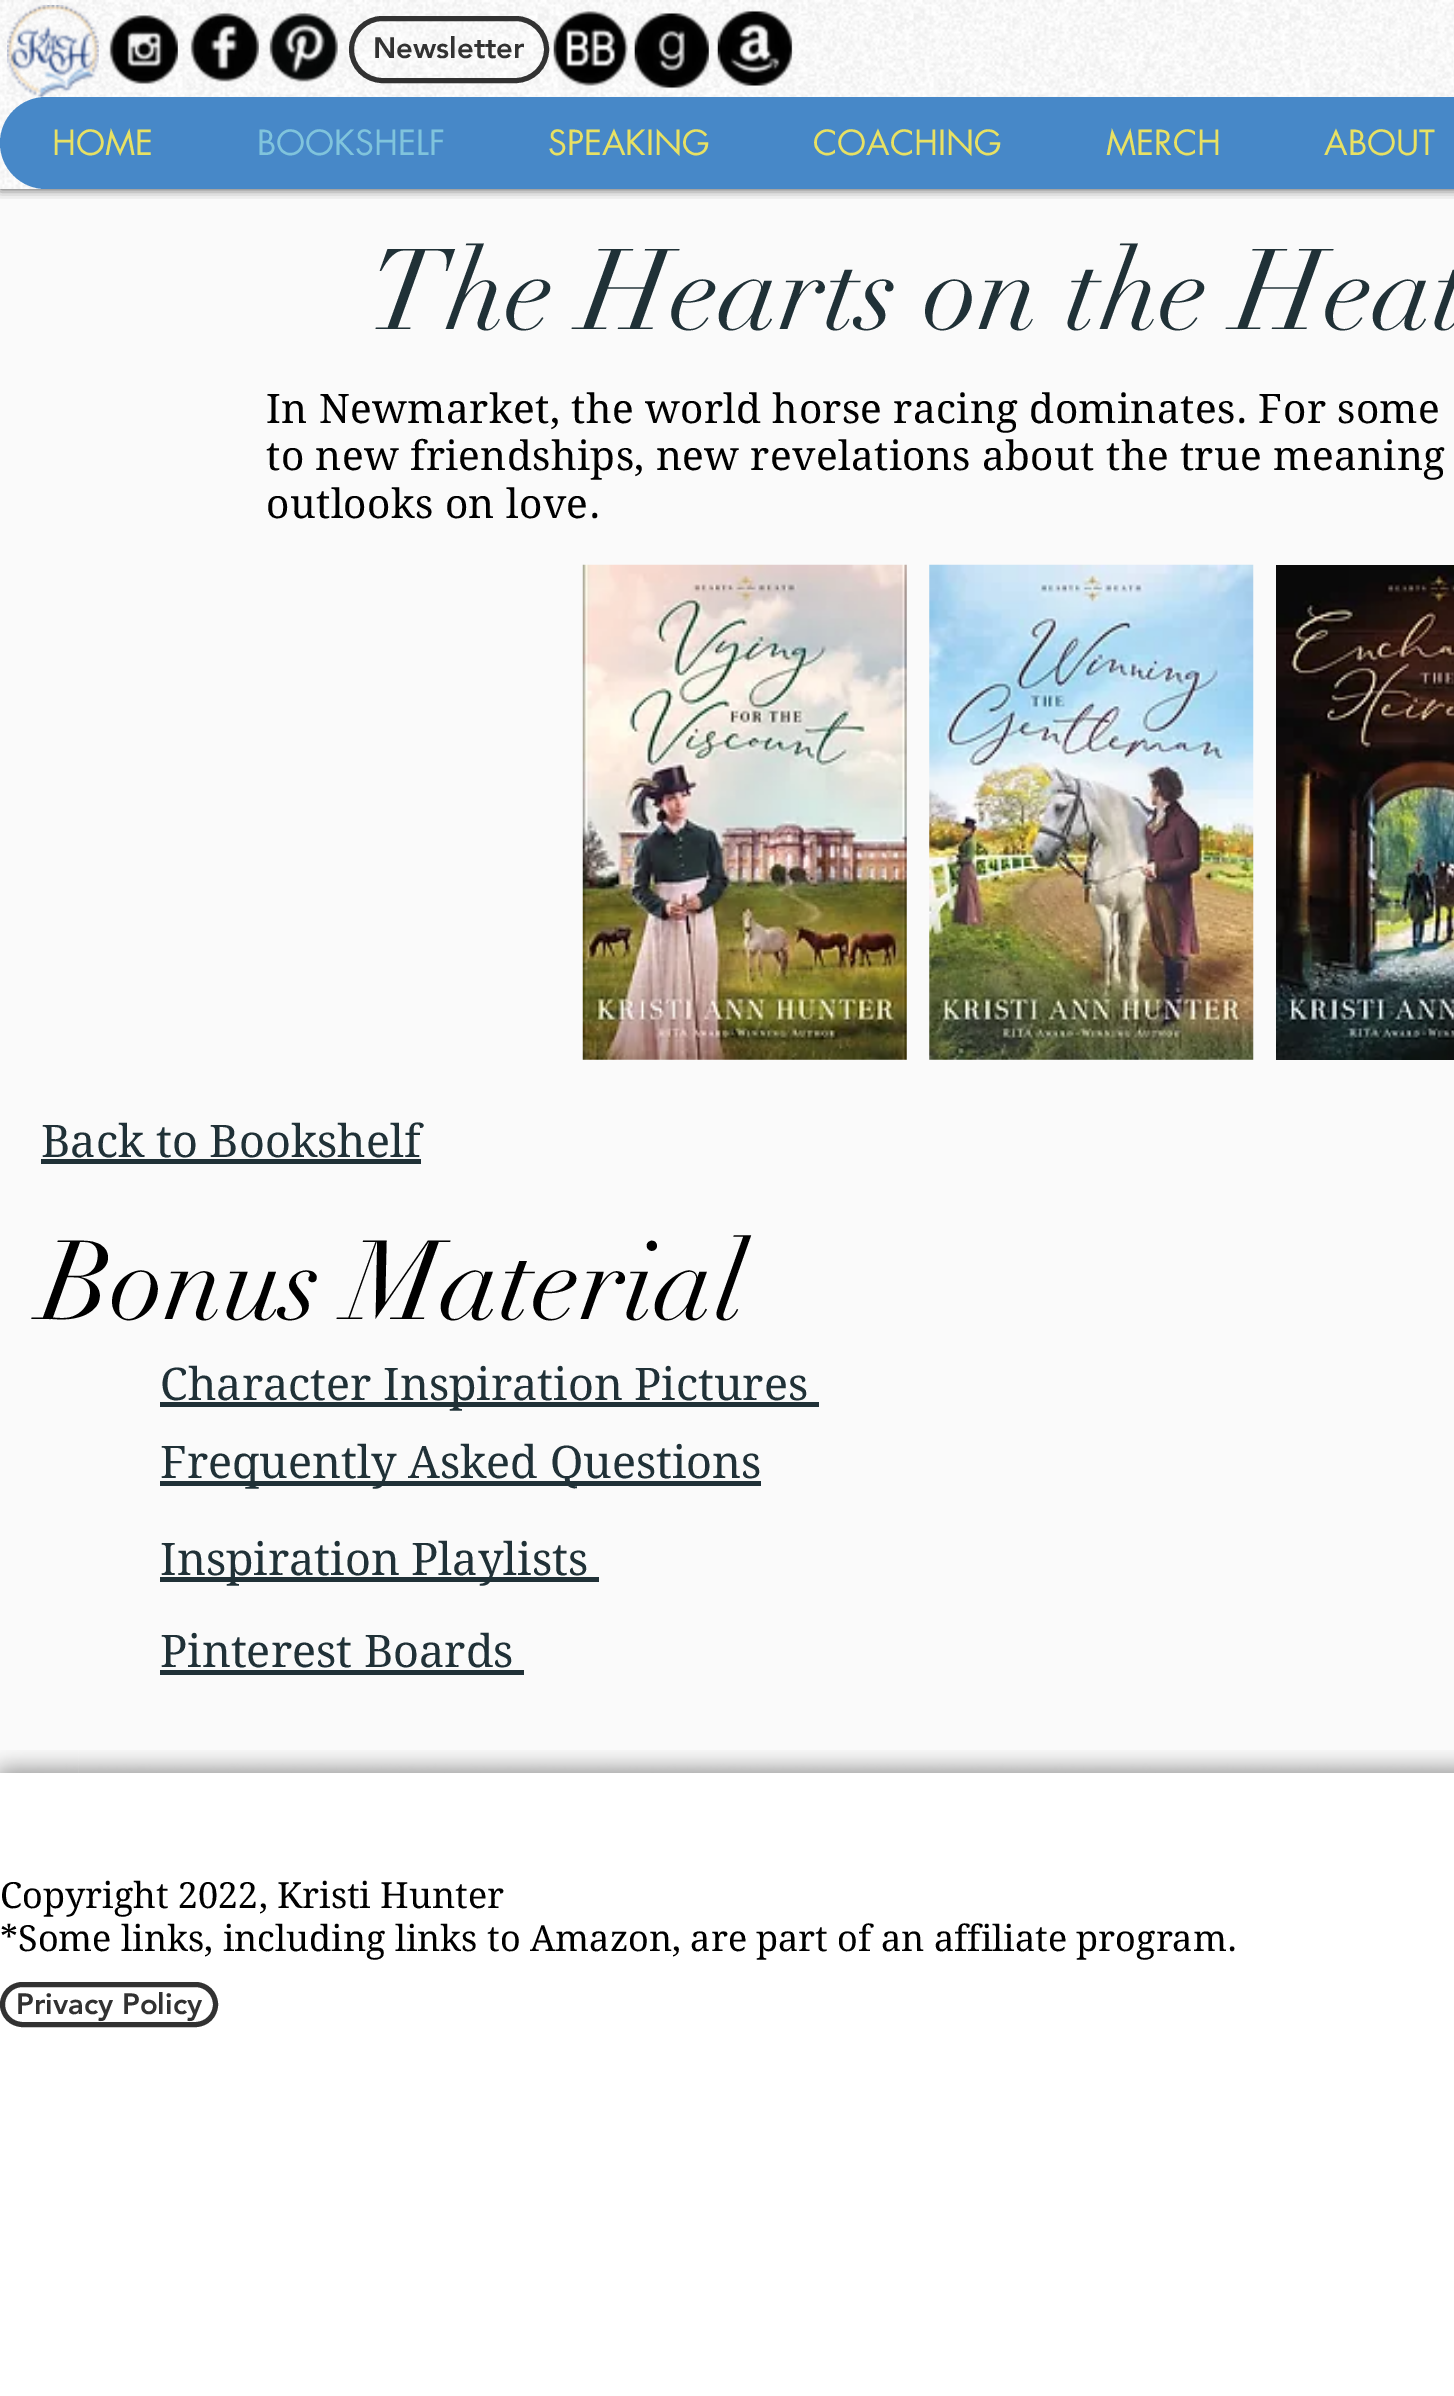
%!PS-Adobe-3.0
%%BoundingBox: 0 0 1454 2396
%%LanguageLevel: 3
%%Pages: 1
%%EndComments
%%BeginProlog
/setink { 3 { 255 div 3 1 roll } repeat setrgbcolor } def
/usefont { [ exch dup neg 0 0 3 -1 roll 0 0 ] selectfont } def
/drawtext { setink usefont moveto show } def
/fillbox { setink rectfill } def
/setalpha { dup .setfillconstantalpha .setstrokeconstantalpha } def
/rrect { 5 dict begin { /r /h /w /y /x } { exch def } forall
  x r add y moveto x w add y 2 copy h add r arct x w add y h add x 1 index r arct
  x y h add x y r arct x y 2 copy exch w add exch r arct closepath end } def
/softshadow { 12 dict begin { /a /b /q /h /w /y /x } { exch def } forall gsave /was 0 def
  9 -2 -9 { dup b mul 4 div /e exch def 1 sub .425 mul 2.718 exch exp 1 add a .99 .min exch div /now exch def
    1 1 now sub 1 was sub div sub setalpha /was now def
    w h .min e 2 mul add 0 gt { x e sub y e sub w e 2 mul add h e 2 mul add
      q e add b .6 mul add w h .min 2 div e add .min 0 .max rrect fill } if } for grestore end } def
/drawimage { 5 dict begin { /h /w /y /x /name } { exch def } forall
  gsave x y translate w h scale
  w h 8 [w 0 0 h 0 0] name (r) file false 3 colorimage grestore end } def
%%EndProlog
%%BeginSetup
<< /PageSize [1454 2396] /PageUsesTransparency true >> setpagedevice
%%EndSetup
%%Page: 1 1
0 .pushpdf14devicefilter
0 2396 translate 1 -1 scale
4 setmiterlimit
0 0 1454 2396 255 255 255 fillbox
0 189 1454 1584 250 250 250 fillbox
gsave
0 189 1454 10 rectclip
0 0 0 setink
0 0 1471 189 0 5.5 0.7 softshadow
grestore
(assets/img1.rgb) 0 0 1454 189 drawimage
(assets/img2.rgb) 7 5 92 92 drawimage
(assets/img3.rgb) 109 15 69 69 drawimage
(assets/img4.rgb) 190 13 69 69 drawimage
(assets/img5.rgb) 269 13 69 69 drawimage
50 50 50 setink
5 setlinewidth
351.5 18.5 195 62 31 rrect stroke
(Newsletter) 373 58 /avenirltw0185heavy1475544-Black 29.25 50 50 50 drawtext
(assets/img6.rgb) 553 11 75 75 drawimage
(assets/img7.rgb) 634 13 75 76 drawimage
(assets/img8.rgb) 717 10 76 76 drawimage
71 136 200 setink
0 97 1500 92 46 rrect fill
(HOME) 52 155 /futura-Regular 33.75 232 225 99 drawtext
(BOOKSHELF) 257 155 /futura-Regular 33.75 128 196 220 drawtext
(SPEAKING) 548 155 /futura-Regular 33.75 232 225 99 drawtext
(COACHING) 813 155 /futura-Regular 33.75 232 225 99 drawtext
(MERCH) 1106 155 /futura-Regular 33.75 232 225 99 drawtext
(ABOUT) 1324 155 /futura-Regular 33.75 232 225 99 drawtext
(The Hearts on the Heat) 369 329 /didot-Regular 112.5 32 49 55 drawtext
/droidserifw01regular-Regular 40.5 usefont
0 0 0 setink
266 423 moveto 0.4 0 (In Newmarket, the world horse racing dominates. For some) ashow
266 470 moveto 0.4 0 (to new friendships, new revelations about the true meaning) ashow
266 518 moveto 0.4 0 (outlooks on love.) ashow
(assets/img9.rgb) 582 564 325 496 drawimage
(assets/img10.rgb) 929 564 325 496 drawimage
(assets/img11.rgb) 1276 565 178 495 drawimage
(Back to Bookshelf) 41 1157 /droidserifw01regular-Regular 45 32 49 55 drawtext
41 1159 380 5 32 49 55 fillbox
(Bonus Material) 41 1319 /didot-Regular 110.25 0 0 0 drawtext
160 1402 659 5 32 49 55 fillbox
(Character Inspiration Pictures) 160 1400 /droidserifw01regular-Regular 45 32 49 55 drawtext
160 1481 601 5 32 49 55 fillbox
(Frequently Asked Questions) 160 1478 /droidserifw01regular-Regular 45 32 49 55 drawtext
160 1577 439 5 32 49 55 fillbox
(Inspiration Playlists) 160 1575 /droidserifw01regular-Regular 45 32 49 55 drawtext
(Pinterest Boards) 160 1667 /droidserifw01regular-Regular 45 32 49 55 drawtext
160 1670 364 5 32 49 55 fillbox
(assets/img12.rgb) 0 1750 79 23 drawimage
(assets/img13.rgb) 78 1750 1376 23 drawimage
(Copyright 2022, Kristi Hunter) 0 1908 /droidserifw01regular-Regular 36 0 0 0 drawtext
(*Some links, including links to Amazon, are part of an affiliate program.) 0 1951 /droidserifw01regular-Regular 36 0 0 0 drawtext
50 50 50 setink
2.5 1984.5 213 40 20 rrect stroke
(Privacy Policy) 16 2014 /avenirltw0185heavy1475544-Black 29.25 50 50 50 drawtext
.poppdf14devicefilter showpage
%%EOF
